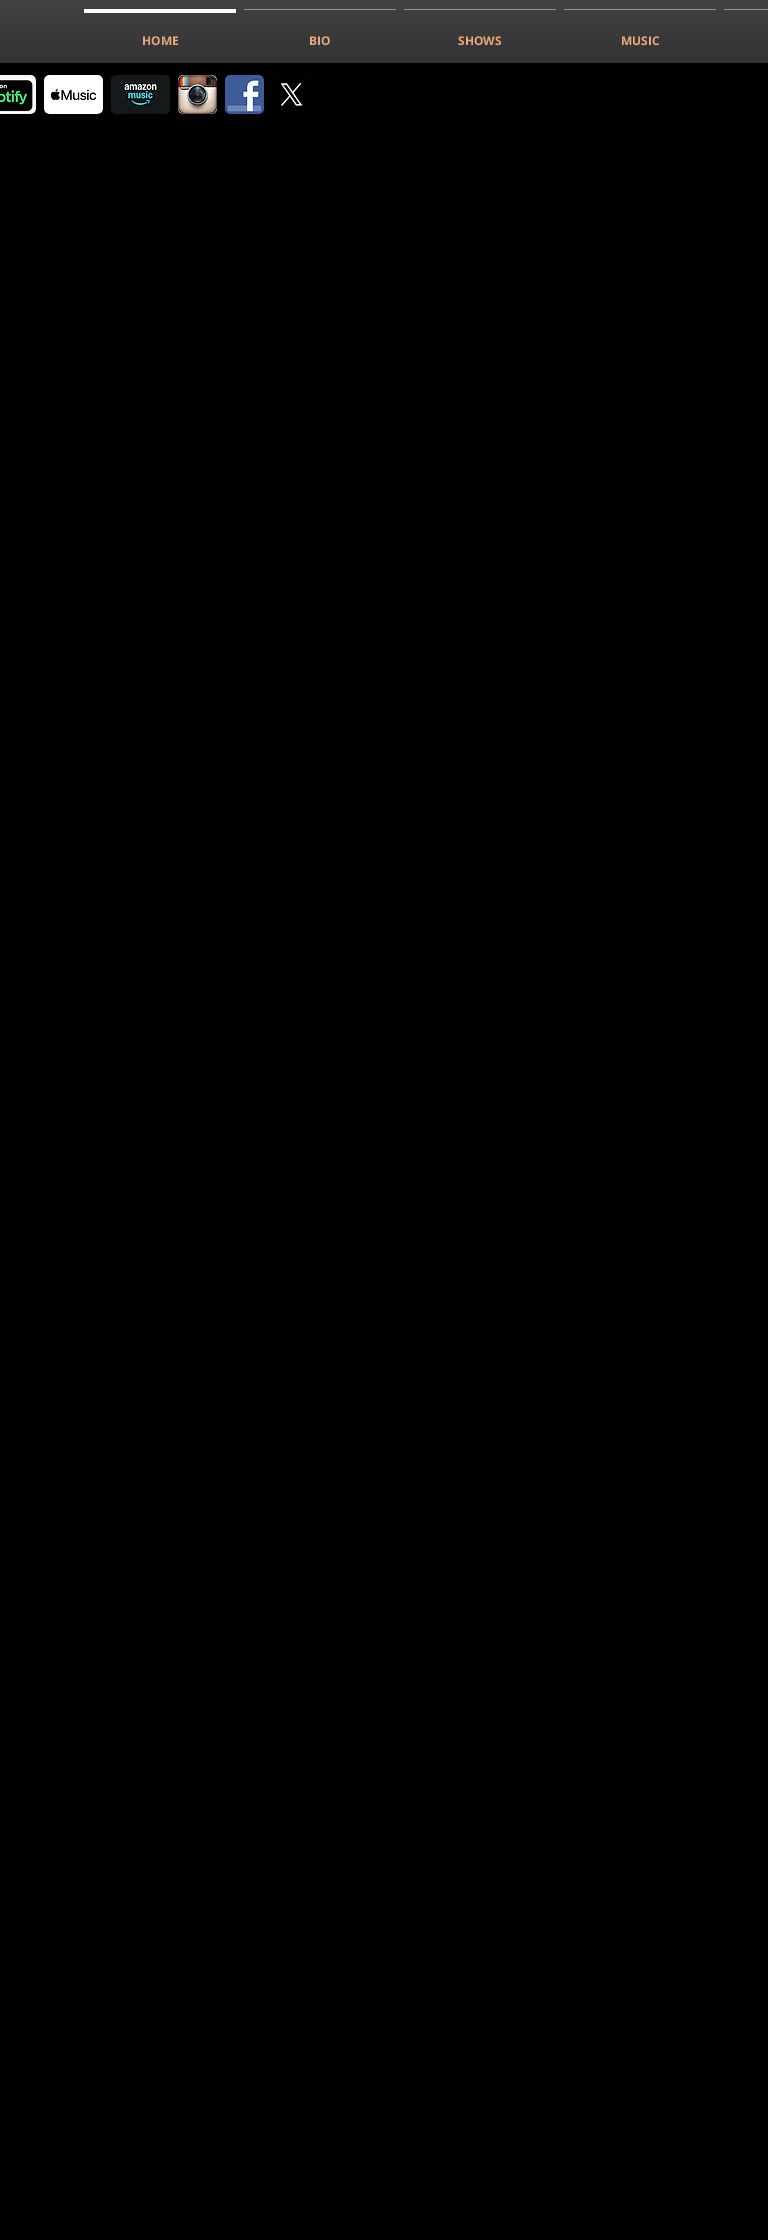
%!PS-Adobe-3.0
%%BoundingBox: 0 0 768 2240
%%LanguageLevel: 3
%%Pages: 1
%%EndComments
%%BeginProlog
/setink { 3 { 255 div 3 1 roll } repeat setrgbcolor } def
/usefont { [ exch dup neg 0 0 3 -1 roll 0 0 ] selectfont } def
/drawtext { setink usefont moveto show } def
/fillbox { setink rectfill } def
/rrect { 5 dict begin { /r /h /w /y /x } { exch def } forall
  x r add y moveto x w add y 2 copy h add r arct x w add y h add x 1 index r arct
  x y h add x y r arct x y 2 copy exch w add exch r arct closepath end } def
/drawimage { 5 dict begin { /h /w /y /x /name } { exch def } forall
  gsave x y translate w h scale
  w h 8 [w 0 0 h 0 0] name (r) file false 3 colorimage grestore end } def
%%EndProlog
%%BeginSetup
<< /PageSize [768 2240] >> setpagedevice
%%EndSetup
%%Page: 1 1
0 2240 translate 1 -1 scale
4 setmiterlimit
0 0 768 2240 0 0 0 fillbox
(assets/img1.rgb) 0 0 768 63 drawimage
724 9 44 1 153 153 153 fillbox
84 9 152 4 255 255 255 fillbox
(HOME) 142 45 /OpenSans-Bold 12 232 166 125 drawtext
244 9 152 1 153 153 153 fillbox
(BIO) 309 45 /OpenSans-Bold 12 232 166 125 drawtext
404 9 152 1 153 153 153 fillbox
(SHOWS) 458 45 /OpenSans-Bold 12 232 166 125 drawtext
564 9 152 1 153 153 153 fillbox
(MUSIC) 621 45 /OpenSans-Bold 12 232 166 125 drawtext
28 28 28 setink
0 75 moveto 31 75 lineto 34 75 36 77 36 80 curveto 36 109 lineto 36 112 34 114 31 114 curveto 0 114 lineto closepath fill
(assets/img2.rgb) 0 75 36 39 drawimage
44 75 59 39 5 rrect fill
(assets/img3.rgb) 44 75 59 39 drawimage
111 75 59 39 5 rrect fill
(assets/img4.rgb) 111 75 59 39 drawimage
178 75 39 39 5 rrect fill
(assets/img5.rgb) 178 75 39 39 drawimage
225 75 39 39 5 rrect fill
(assets/img6.rgb) 225 75 39 39 drawimage
272 75 39 39 5 rrect fill
(assets/img7.rgb) 272 75 39 39 drawimage
showpage
%%EOF
